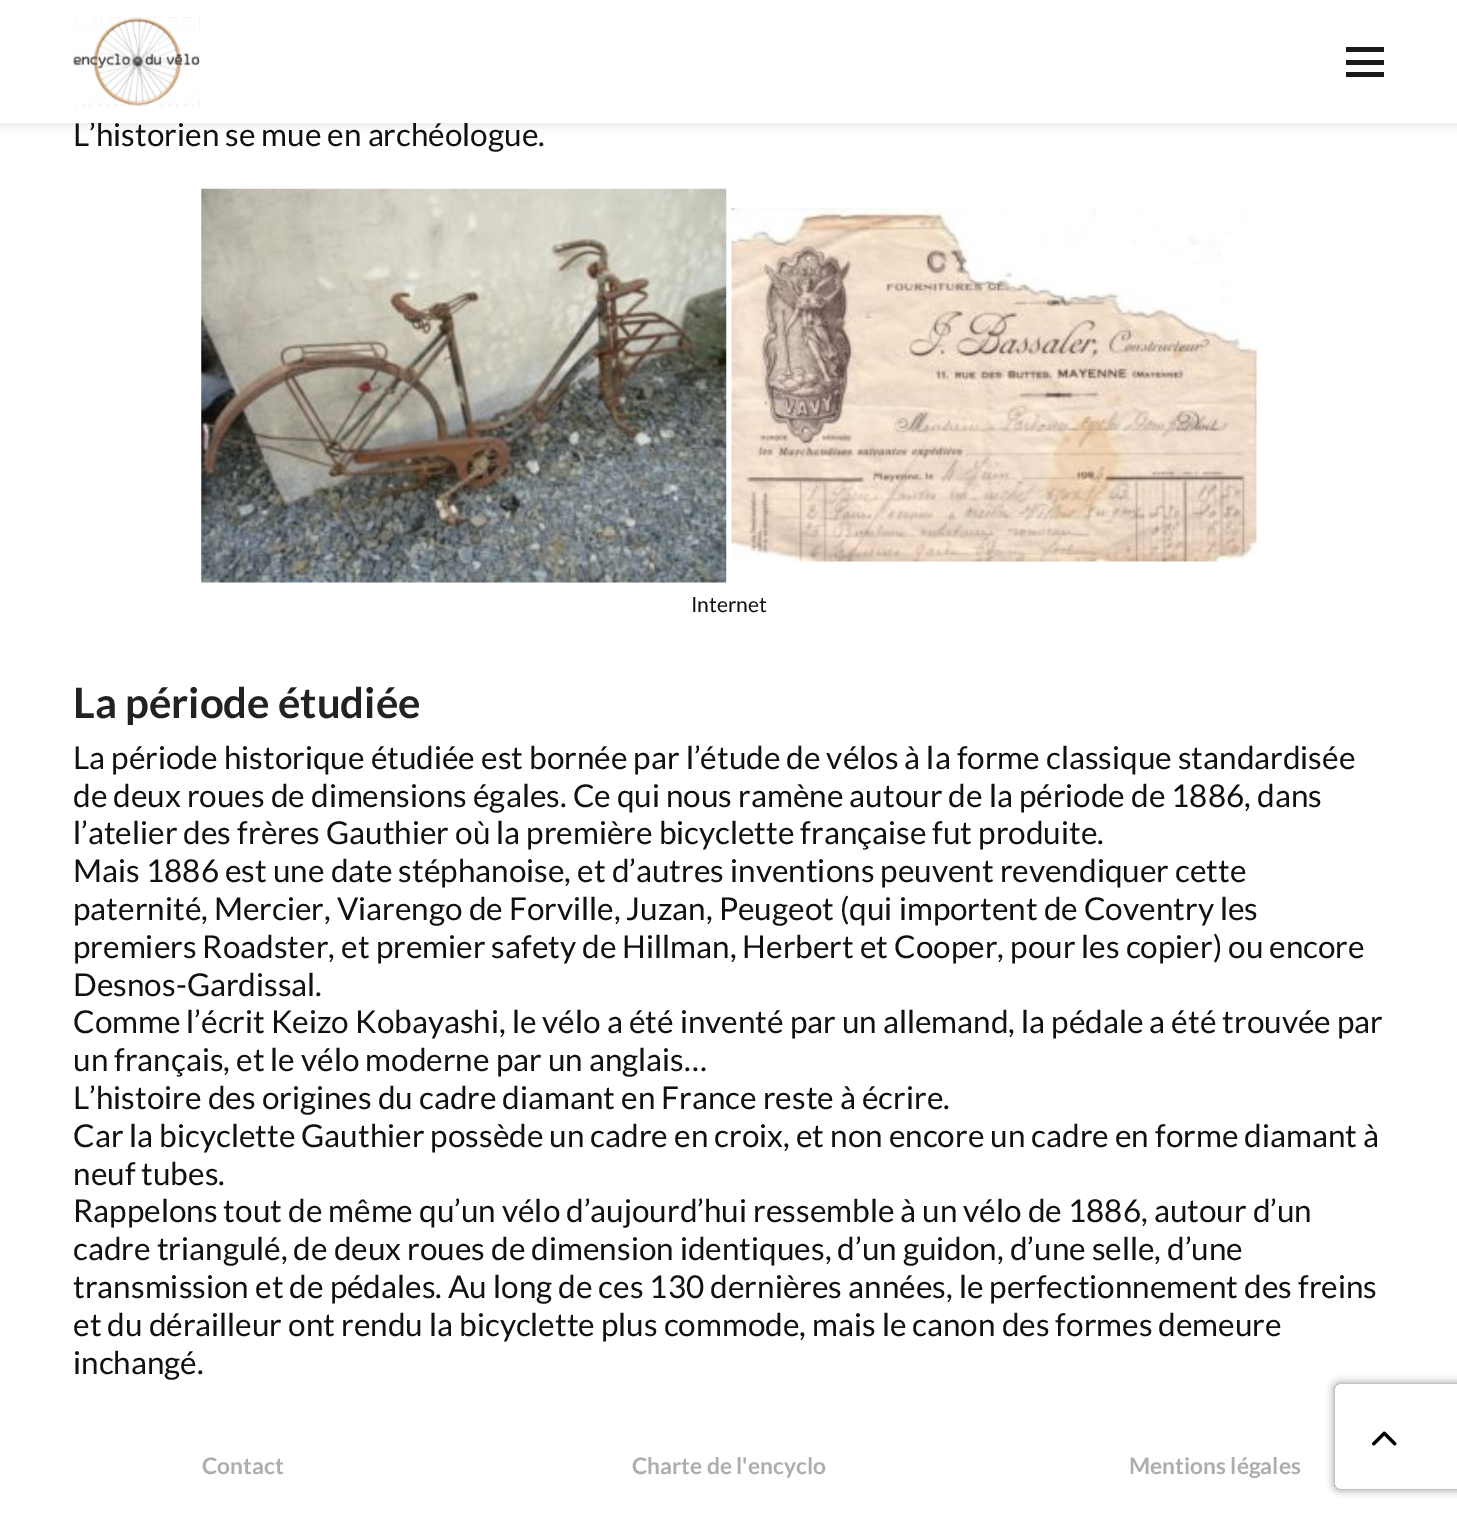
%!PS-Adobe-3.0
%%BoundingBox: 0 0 1457 1513
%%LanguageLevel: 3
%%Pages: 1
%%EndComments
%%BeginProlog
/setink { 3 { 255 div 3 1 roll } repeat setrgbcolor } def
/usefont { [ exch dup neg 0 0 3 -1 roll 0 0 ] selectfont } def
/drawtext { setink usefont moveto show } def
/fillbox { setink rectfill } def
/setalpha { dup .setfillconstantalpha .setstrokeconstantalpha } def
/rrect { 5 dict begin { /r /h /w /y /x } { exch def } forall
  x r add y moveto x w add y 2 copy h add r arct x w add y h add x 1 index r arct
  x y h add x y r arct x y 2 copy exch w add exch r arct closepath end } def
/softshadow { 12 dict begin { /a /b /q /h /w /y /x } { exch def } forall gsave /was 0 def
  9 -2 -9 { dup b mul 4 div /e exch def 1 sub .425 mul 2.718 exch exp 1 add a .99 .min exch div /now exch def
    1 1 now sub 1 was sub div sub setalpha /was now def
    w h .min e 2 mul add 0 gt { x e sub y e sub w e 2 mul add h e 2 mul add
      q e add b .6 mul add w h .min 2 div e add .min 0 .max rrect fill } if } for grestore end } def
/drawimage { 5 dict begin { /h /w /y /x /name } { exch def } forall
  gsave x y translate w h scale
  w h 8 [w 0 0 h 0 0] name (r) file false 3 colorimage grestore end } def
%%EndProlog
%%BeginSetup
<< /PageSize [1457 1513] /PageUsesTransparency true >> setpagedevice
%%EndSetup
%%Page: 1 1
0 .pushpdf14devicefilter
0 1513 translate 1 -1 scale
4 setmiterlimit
0 0 1457 1513 255 255 255 fillbox
gsave
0 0 moveto 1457 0 lineto 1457 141 lineto 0 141 lineto closepath 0 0 moveto 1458 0 lineto 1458 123 lineto 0 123 lineto closepath eoclip newpath
0 0 0 setink
0 4 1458 122 0 4.5 0.09 softshadow
grestore
(L’historien se mue en archéologue.) 73 146 /Lato-Regular 31.5 17 17 17 drawtext
0.9 setalpha
0 122 1457 1 255 255 255 fillbox
1 setalpha
(assets/img1.rgb) 72 17 128 89 drawimage
1346 60 38 5 26 26 26 fillbox
1346 47 38 5 26 26 26 fillbox
1346 72 38 5 26 26 26 fillbox
(assets/img2.rgb) 201 188 526 395 drawimage
(assets/img3.rgb) 731 208 526 354 drawimage
(Internet) 691 612 /Lato-Regular 21 17 17 17 drawtext
(La période étudiée) 73 718 /Lato-Bold 42 34 34 34 drawtext
(La période historique étudiée est bornée par l’étude de vélos à la forme classique standardisée) 73 769 /Lato-Regular 31.5 17 17 17 drawtext
(de deux roues de dimensions égales. Ce qui nous ramène autour de la période de 1886, dans) 73 807 /Lato-Regular 31.5 17 17 17 drawtext
(l’atelier des frères Gauthier où la première bicyclette française fut produite.) 73 844 /Lato-Regular 31.5 17 17 17 drawtext
(Mais 1886 est une date stéphanoise, et d’autres inventions peuvent revendiquer cette) 73 882 /Lato-Regular 31.5 17 17 17 drawtext
(paternité, Mercier, Viarengo de Forville, Juzan, Peugeot \(qui importent de Coventry les) 73 920 /Lato-Regular 31.5 17 17 17 drawtext
(premiers Roadster, et premier safety de Hillman, Herbert et Cooper, pour les copier\) ou encore) 73 958 /Lato-Regular 31.5 17 17 17 drawtext
(Desnos-Gardissal.) 73 996 /Lato-Regular 31.5 17 17 17 drawtext
(Comme l’écrit Keizo Kobayashi, le vélo a été inventé par un allemand, la pédale a été trouvée par) 73 1033 /Lato-Regular 31.5 17 17 17 drawtext
(un français, et le vélo moderne par un anglais…) 73 1071 /Lato-Regular 31.5 17 17 17 drawtext
(L’histoire des origines du cadre diamant en France reste à écrire.) 73 1109 /Lato-Regular 31.5 17 17 17 drawtext
(Car la bicyclette Gauthier possède un cadre en croix, et non encore un cadre en forme diamant à) 73 1147 /Lato-Regular 31.5 17 17 17 drawtext
(neuf tubes.) 73 1185 /Lato-Regular 31.5 17 17 17 drawtext
(Rappelons tout de même qu’un vélo d’aujourd’hui ressemble à un vélo de 1886, autour d’un) 73 1222 /Lato-Regular 31.5 17 17 17 drawtext
(cadre triangulé, de deux roues de dimension identiques, d’un guidon, d’une selle, d’une) 73 1260 /Lato-Regular 31.5 17 17 17 drawtext
(transmission et de pédales. Au long de ces 130 dernières années, le perfectionnement des freins) 73 1298 /Lato-Regular 31.5 17 17 17 drawtext
(et du dérailleur ont rendu la bicyclette plus commode, mais le canon des formes demeure) 73 1336 /Lato-Regular 31.5 17 17 17 drawtext
(inchangé.) 73 1374 /Lato-Regular 31.5 17 17 17 drawtext
(Contact) 202 1474 /Lato-Bold 22.75 173 173 173 drawtext
(Charte de l'encyclo) 632 1474 /Lato-Bold 22.75 173 173 173 drawtext
(Mentions légales) 1129 1474 /Lato-Bold 22.75 173 173 173 drawtext
gsave
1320 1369 moveto 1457 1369 lineto 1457 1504 lineto 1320 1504 lineto closepath 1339 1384 moveto 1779 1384 lineto 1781 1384 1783 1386 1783 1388 curveto 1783 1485 lineto 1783 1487 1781 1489 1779 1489 curveto 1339 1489 lineto 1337 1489 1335 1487 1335 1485 curveto 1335 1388 lineto 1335 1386 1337 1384 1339 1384 curveto closepath eoclip newpath
128 128 128 setink
1335 1384 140 105 4 4.5 1 softshadow
grestore
(assets/img4.rgb) 1372 1431 25 15 drawimage
.poppdf14devicefilter showpage
%%EOF
